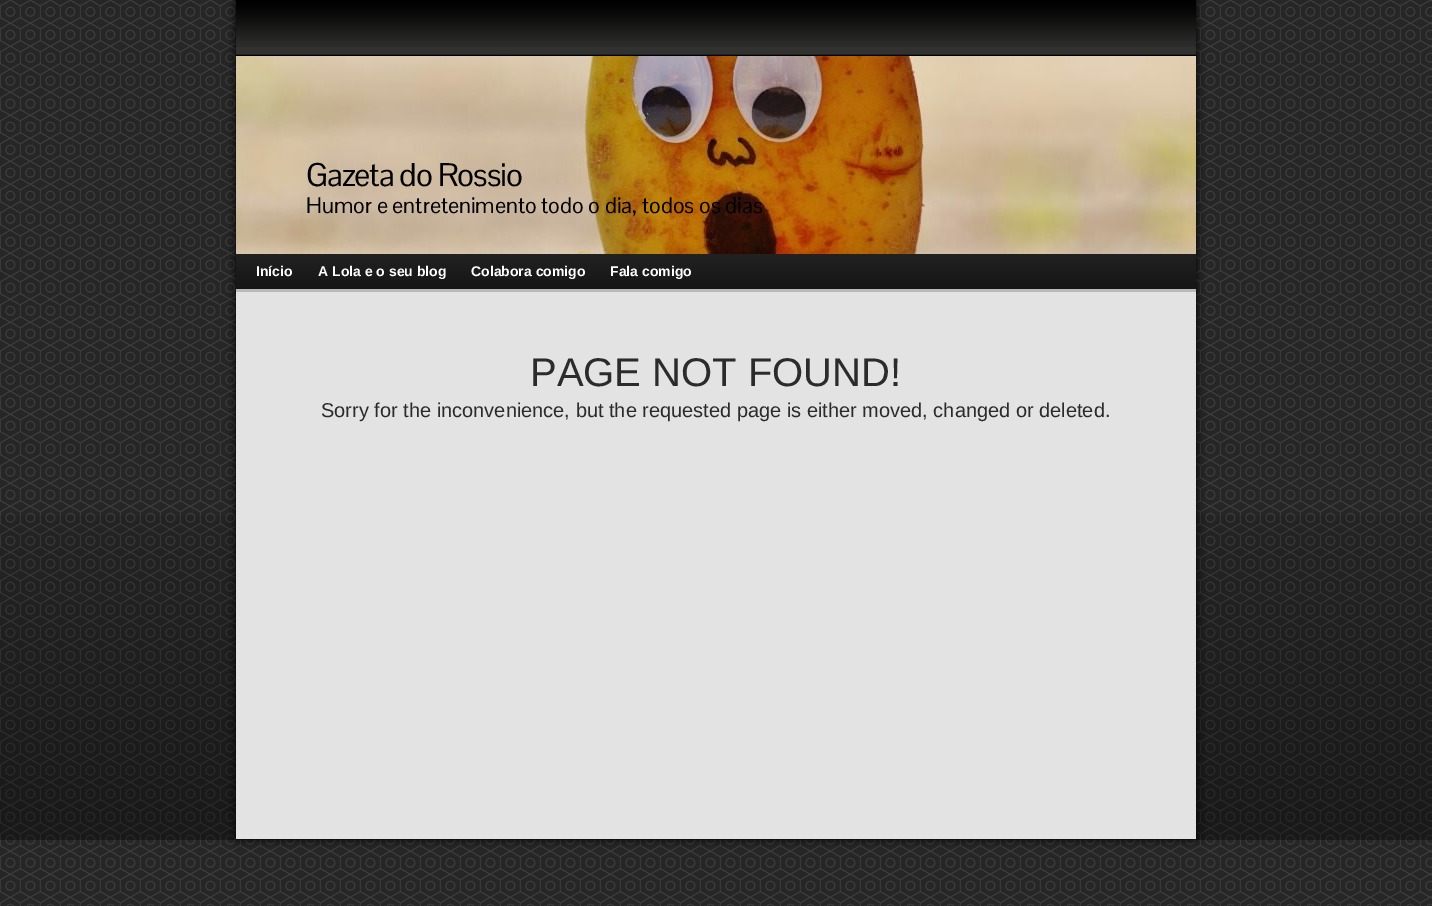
%!PS-Adobe-3.0
%%BoundingBox: 0 0 1432 906
%%LanguageLevel: 3
%%Pages: 1
%%EndComments
%%BeginProlog
/setink { 3 { 255 div 3 1 roll } repeat setrgbcolor } def
/usefont { [ exch dup neg 0 0 3 -1 roll 0 0 ] selectfont } def
/drawtext { setink usefont moveto show } def
/fillbox { setink rectfill } def
/setalpha { dup .setfillconstantalpha .setstrokeconstantalpha } def
/rrect { 5 dict begin { /r /h /w /y /x } { exch def } forall
  x r add y moveto x w add y 2 copy h add r arct x w add y h add x 1 index r arct
  x y h add x y r arct x y 2 copy exch w add exch r arct closepath end } def
/softshadow { 12 dict begin { /a /b /q /h /w /y /x } { exch def } forall gsave /was 0 def
  9 -2 -9 { dup b mul 4 div /e exch def 1 sub .425 mul 2.718 exch exp 1 add a .99 .min exch div /now exch def
    1 1 now sub 1 was sub div sub setalpha /was now def
    w h .min e 2 mul add 0 gt { x e sub y e sub w e 2 mul add h e 2 mul add
      q e add b .6 mul add w h .min 2 div e add .min 0 .max rrect fill } if } for grestore end } def
/drawimage { 5 dict begin { /h /w /y /x /name } { exch def } forall
  gsave x y translate w h scale
  w h 8 [w 0 0 h 0 0] name (r) file false 3 colorimage grestore end } def
%%EndProlog
%%BeginSetup
<< /PageSize [1432 906] /PageUsesTransparency true >> setpagedevice
%%EndSetup
%%Page: 1 1
0 .pushpdf14devicefilter
0 906 translate 1 -1 scale
4 setmiterlimit
0 0 1432 906 255 255 255 fillbox
(assets/img1.rgb) 0 0 1432 906 drawimage
(assets/img2.rgb) 0 516 1432 324 drawimage
0 0 0 setink
236 0 960 839 0 5 1 softshadow
236 47 960 7 49 49 48 fillbox
(assets/img3.rgb) 236 0 960 47 drawimage
236 54 960 1 34 34 34 fillbox
236 55 960 1 0 0 0 fillbox
(assets/img4.rgb) 236 56 960 198 drawimage
/PontanoSans-Regular 32 usefont
306 186 moveto -1 0 (Gazeta do Rossio) ashow
(Humor e entretenimento todo o dia, todos os dias) 306 213 /PontanoSans-Regular 22 0 0 0 drawtext
(assets/img5.rgb) 236 254 960 35 drawimage
(Início) 256 276 /LiberationSans-Bold 14 255 255 255 drawtext
(A Lola e o seu blog) 318 276 /LiberationSans-Bold 14 255 255 255 drawtext
(Colabora comigo) 471 276 /LiberationSans-Bold 14 255 255 255 drawtext
(Fala comigo) 610 276 /LiberationSans-Bold 14 255 255 255 drawtext
236 289 960 3 186 186 186 fillbox
236 292 960 547 227 227 227 fillbox
(PAGE NOT FOUND!) 530 386 /LiberationSans-Regular 40 44 43 43 drawtext
(Sorry for the inconvenience, but the requested page is either moved, changed or deleted.) 321 417 /LiberationSans-Regular 20 44 43 43 drawtext
.poppdf14devicefilter showpage
%%EOF
